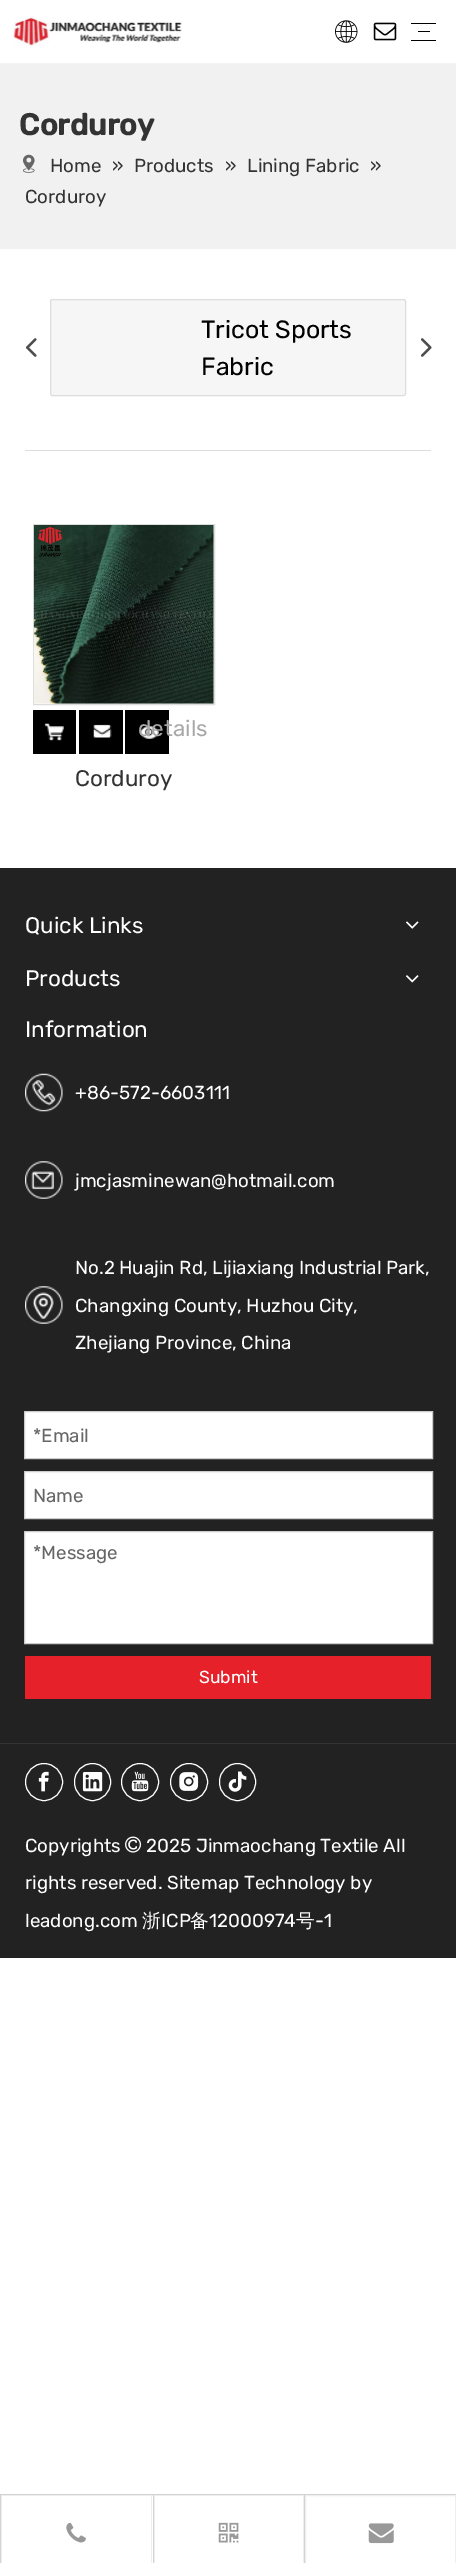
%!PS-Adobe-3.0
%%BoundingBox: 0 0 456 2563
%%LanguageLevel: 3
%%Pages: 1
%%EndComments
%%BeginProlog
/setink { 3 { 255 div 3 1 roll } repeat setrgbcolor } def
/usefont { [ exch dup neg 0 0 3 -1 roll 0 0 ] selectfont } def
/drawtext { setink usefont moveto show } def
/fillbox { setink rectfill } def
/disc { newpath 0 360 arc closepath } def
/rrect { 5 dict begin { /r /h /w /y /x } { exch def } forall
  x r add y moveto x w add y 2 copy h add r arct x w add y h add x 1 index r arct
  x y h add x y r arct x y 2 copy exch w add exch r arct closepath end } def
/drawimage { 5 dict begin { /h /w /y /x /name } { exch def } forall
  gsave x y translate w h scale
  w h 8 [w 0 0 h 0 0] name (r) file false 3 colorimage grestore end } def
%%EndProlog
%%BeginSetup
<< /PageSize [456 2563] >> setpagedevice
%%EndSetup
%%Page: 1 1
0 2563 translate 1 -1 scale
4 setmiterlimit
0 0 456 2563 255 255 255 fillbox
0 63 456 1 243 243 243 fillbox
(assets/img1.rgb) 12 17 170 30 drawimage
(assets/img2.rgb) 335 20 23 23 drawimage
(assets/img3.rgb) 373 22 24 19 drawimage
411 23 25 1 0 0 0 fillbox
418 31 12 1 0 0 0 fillbox
411 40 25 1 0 0 0 fillbox
0 64 456 185 241 241 241 fillbox
(Corduroy) 19 135 /Rubik-Bold 30 51 51 51 drawtext
(assets/img4.rgb) 22 154 13 19 drawimage
(Home) 50 172 /Rubik-Regular 18.75 51 51 51 drawtext
(») 112 172 /Rubik-Regular 18.75 51 51 51 drawtext
(Products) 134 172 /Rubik-Regular 18.75 51 51 51 drawtext
(») 225 172 /Rubik-Regular 18.75 51 51 51 drawtext
(Lining Fabric) 247 172 /Rubik-Regular 18.75 51 51 51 drawtext
(») 370 172 /Rubik-Regular 18.75 51 51 51 drawtext
(Corduroy) 25 203 /Rubik-Regular 18.75 51 51 51 drawtext
(assets/img5.rgb) 26 338 11 19 drawimage
246 246 246 setink
50.5 299.5 355 96 2 rrect gsave fill grestore
221 221 221 setink
stroke
(Tricot Sports) 201 338 /Rubik-Regular 25 0 0 0 drawtext
(Fabric) 201 375 /Rubik-Regular 25 0 0 0 drawtext
(assets/img6.rgb) 421 338 11 19 drawimage
25 450 406 1 221 221 221 fillbox
33.5 524.5 181 180 rectstroke
(assets/img7.rgb) 33 525 181 179 drawimage
33 710 43 44 0 0 0 fillbox
(assets/img8.rgb) 44 723 20 18 drawimage
79 710 44 44 0 0 0 fillbox
(assets/img9.rgb) 93 724 19 14 drawimage
125 710 44 44 0 0 0 fillbox
(assets/img10.rgb) 139 726 20 13 drawimage
(details) 138 736 /Rubik-Regular 22.5 168 168 168 drawtext
(Corduroy) 75 786 /Rubik-Regular 22.5 51 51 51 drawtext
0 868 456 875 34 34 34 fillbox
(Quick Links) 25 933 /Rubik-Regular 22.5 255 255 255 drawtext
(assets/img11.rgb) 406 921 13 8 drawimage
(Products) 25 986 /Rubik-Regular 22.5 255 255 255 drawtext
(assets/img12.rgb) 406 975 13 8 drawimage
0 2494 456 1 211 211 211 fillbox
0 2495 1 68 211 211 211 fillbox
1 2495 152 1 238 238 238 fillbox
151 2495 1 68 238 238 238 fillbox
1 2495 1 68 238 238 238 fillbox
(assets/img13.rgb) 66 2522 20 21 drawimage
153 2495 1 68 211 211 211 fillbox
154 2495 150 1 238 238 238 fillbox
303 2495 1 68 238 238 238 fillbox
154 2495 1 68 238 238 238 fillbox
(assets/img14.rgb) 218 2522 21 21 drawimage
304 2495 1 68 211 211 211 fillbox
238 238 238 setink
305.5 2495.5 150 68 rectstroke
(assets/img15.rgb) 368 2523 26 21 drawimage
(Information) 25 1037 /Rubik-Regular 22.5 255 255 255 drawtext
(assets/img16.rgb) 25 1073 38 39 drawimage
(+86-572-6603111) 75 1099 /Rubik-Regular 18.75 255 255 255 drawtext
(assets/img17.rgb) 25 1161 38 38 drawimage
(jmcjasminewan@hotmail.com) 75 1187 /Rubik-Regular 18.75 255 255 255 drawtext
(assets/img18.rgb) 25 1286 38 38 drawimage
(No.2 Huajin Rd, Lijiaxiang Industrial Park,) 75 1274 /Rubik-Regular 18.75 255 255 255 drawtext
(Changxing County, Huzhou City,) 75 1312 /Rubik-Regular 18.75 255 255 255 drawtext
(Zhejiang Province, China) 75 1349 /Rubik-Regular 18.75 255 255 255 drawtext
24.5 1411.5 moveto 432.5 1411.5 lineto 432.5 1458.5 lineto 24.5 1458.5 lineto closepath gsave fill grestore
204 204 204 setink
stroke
(*Email) 33 1442 /Rubik-Regular 18.75 102 102 102 drawtext
255 255 255 setink
24.5 1471.5 moveto 432.5 1471.5 lineto 432.5 1518.5 lineto 24.5 1518.5 lineto closepath gsave fill grestore
204 204 204 setink
stroke
(Name) 33 1502 /Rubik-Regular 18.75 102 102 102 drawtext
255 255 255 setink
24.5 1531.5 moveto 432.5 1531.5 lineto 432.5 1643.5 lineto 24.5 1643.5 lineto closepath gsave fill grestore
204 204 204 setink
stroke
(*Message) 33 1559 /Rubik-Regular 18.75 102 102 102 drawtext
25 1656 406 43 230 33 41 fillbox
(Submit) 199 1683 /Rubik-Regular 17.5 255 255 255 drawtext
0 1744 456 214 34 34 34 fillbox
0 1743 456 1 51 51 51 fillbox
255 255 255 setink
44 1782 18.5 disc stroke
(assets/img19.rgb) 38 1771 11 21 drawimage
74.5 1763.5 36 37 18 rrect stroke
(assets/img20.rgb) 82 1772 21 20 drawimage
140 1782 18.5 disc stroke
(assets/img21.rgb) 131 1771 18 21 drawimage
189 1782 18.5 disc stroke
(assets/img22.rgb) 179 1772 20 19 drawimage
219.5 1763.5 36 37 18 rrect stroke
(assets/img23.rgb) 228 1771 19 21 drawimage
(Copyrights) 25 1852 /Rubik-Regular 18.75 255 255 255 drawtext
(assets/img24.rgb) 125 1836 17 17 drawimage
(2025 Jinmaochang Textile All) 146 1852 /Rubik-Regular 18.75 255 255 255 drawtext
(rights reserved. Sitemap Technology by) 25 1889 /Rubik-Regular 18.75 255 255 255 drawtext
(leadong.com) 25 1927 /Rubik-Regular 18.75 255 255 255 drawtext
(浙) 142 1927 /WenQuanYiZenHei-Medium 18.75 255 255 255 drawtext
(ICP) 161 1927 /Rubik-Regular 18.75 255 255 255 drawtext
(备) 190 1927 /WenQuanYiZenHei-Medium 18.75 255 255 255 drawtext
(12000974) 209 1927 /Rubik-Regular 18.75 255 255 255 drawtext
(号) 296 1927 /WenQuanYiZenHei-Medium 18.75 255 255 255 drawtext
(-1) 315 1927 /Rubik-Regular 18.75 255 255 255 drawtext
showpage
%%EOF
